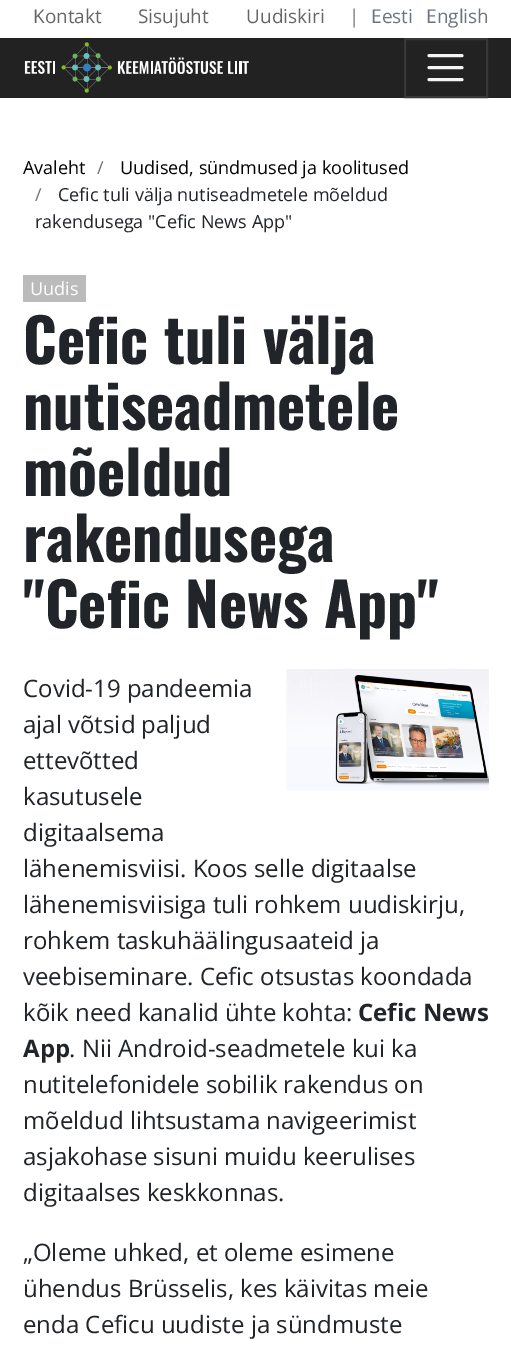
%!PS-Adobe-3.0
%%BoundingBox: 0 0 511 1345
%%LanguageLevel: 3
%%Pages: 1
%%EndComments
%%BeginProlog
/setink { 3 { 255 div 3 1 roll } repeat setrgbcolor } def
/usefont { [ exch dup neg 0 0 3 -1 roll 0 0 ] selectfont } def
/drawtext { setink usefont moveto show } def
/fillbox { setink rectfill } def
/drawimage { 5 dict begin { /h /w /y /x /name } { exch def } forall
  gsave x y translate w h scale
  w h 8 [w 0 0 h 0 0] name (r) file false 3 colorimage grestore end } def
%%EndProlog
%%BeginSetup
<< /PageSize [511 1345] >> setpagedevice
%%EndSetup
%%Page: 1 1
0 1345 translate 1 -1 scale
4 setmiterlimit
0 0 511 1345 255 255 255 fillbox
(Kontakt) 33 23 /OpenSans-Regular 19 102 102 102 drawtext
(Sisujuht) 138 23 /OpenSans-Regular 19 102 102 102 drawtext
(Uudiskiri) 246 23 /OpenSans-Regular 19 102 102 102 drawtext
(|) 349 23 /OpenSans-Regular 19 108 117 125 drawtext
(Eesti) 371 23 /OpenSans-Regular 19 108 117 125 drawtext
(English) 426 23 /OpenSans-Regular 19 108 117 125 drawtext
0 38 511 60 34 34 34 fillbox
(assets/img1.rgb) 24 42 225 51 drawimage
56 56 56 setink
2 setlinewidth
405 39 82 58 rectstroke
244 244 244 setink
3 setlinewidth
1 setlinecap
429 55.5 moveto 462 55.5 lineto 429 67.5 moveto 462 67.5 lineto 429 79.5 moveto 462 79.5 lineto stroke
(Avaleht) 23 174 /OpenSans-Regular 18 0 0 0 drawtext
(/) 97 174 /OpenSans-Regular 18 108 117 125 drawtext
(Uudised, sündmused ja koolitused) 120 174 /OpenSans-Regular 18 0 0 0 drawtext
(/) 35 201 /OpenSans-Regular 18 108 117 125 drawtext
(Cefic tuli välja nutiseadmetele mõeldud) 58 201 /OpenSans-Regular 18 33 37 41 drawtext
(rakendusega "Cefic News App") 35 228 /OpenSans-Regular 18 33 37 41 drawtext
23 275 63 27 187 187 187 fillbox
(Uudis) 30 295 /OpenSans-Regular 18 255 255 255 drawtext
(Cefic tuli välja) 23 364 /Oswald-Bold 60 33 37 41 drawtext
(nutiseadmetele) 23 430 /Oswald-Bold 60 33 37 41 drawtext
(mõeldud) 23 496 /Oswald-Bold 60 33 37 41 drawtext
(rakendusega) 23 562 /Oswald-Bold 60 33 37 41 drawtext
("Cefic News App") 23 628 /Oswald-Bold 60 33 37 41 drawtext
(assets/img2.rgb) 286 669 203 122 drawimage
(Covid-19 pandeemia) 23 697 /OpenSans-Regular 24 33 37 41 drawtext
(ajal võtsid paljud) 23 733 /OpenSans-Regular 24 33 37 41 drawtext
(ettevõtted) 23 769 /OpenSans-Regular 24 33 37 41 drawtext
(kasutusele) 23 805 /OpenSans-Regular 24 33 37 41 drawtext
(digitaalsema) 23 841 /OpenSans-Regular 24 33 37 41 drawtext
(lähenemisviisi. Koos selle digitaalse) 23 877 /OpenSans-Regular 24 33 37 41 drawtext
(lähenemisviisiga tuli rohkem uudiskirju,) 23 913 /OpenSans-Regular 24 33 37 41 drawtext
(rohkem taskuhäälingusaateid ja) 23 949 /OpenSans-Regular 24 33 37 41 drawtext
(veebiseminare. Cefic otsustas koondada) 23 985 /OpenSans-Regular 24 33 37 41 drawtext
(kõik need kanalid ühte kohta:) 23 1021 /OpenSans-Regular 24 33 37 41 drawtext
(Cefic News) 358 1021 /OpenSans-Bold 24 33 37 41 drawtext
(App) 23 1057 /OpenSans-Bold 24 33 37 41 drawtext
(. Nii Android-seadmetele kui ka) 69 1057 /OpenSans-Regular 24 33 37 41 drawtext
(nutitelefonidele sobilik rakendus on) 23 1093 /OpenSans-Regular 24 33 37 41 drawtext
(mõeldud lihtsustama navigeerimist) 23 1129 /OpenSans-Regular 24 33 37 41 drawtext
(asjakohase sisuni muidu keerulises) 23 1165 /OpenSans-Regular 24 33 37 41 drawtext
(digitaalses keskkonnas.) 23 1201 /OpenSans-Regular 24 33 37 41 drawtext
(„Oleme uhked, et oleme esimene) 23 1261 /OpenSans-Regular 24 33 37 41 drawtext
(ühendus Brüsselis, kes käivitas meie) 23 1297 /OpenSans-Regular 24 33 37 41 drawtext
(enda Ceficu uudiste ja sündmuste) 23 1333 /OpenSans-Regular 24 33 37 41 drawtext
showpage
%%EOF
